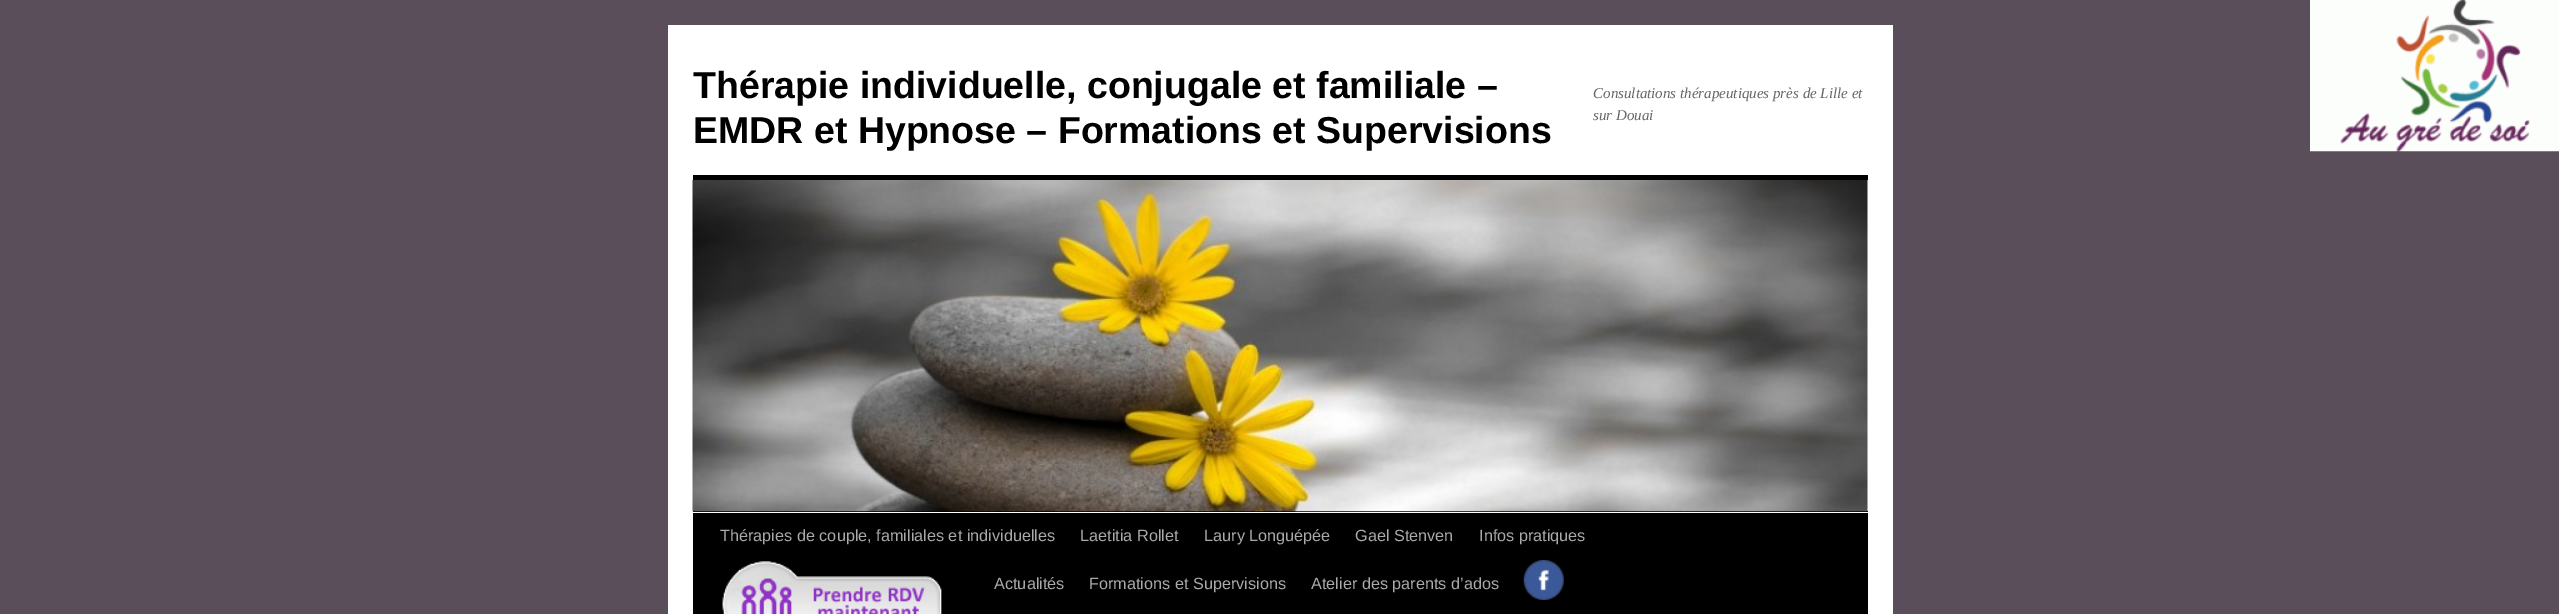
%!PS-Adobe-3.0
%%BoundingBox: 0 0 2559 614
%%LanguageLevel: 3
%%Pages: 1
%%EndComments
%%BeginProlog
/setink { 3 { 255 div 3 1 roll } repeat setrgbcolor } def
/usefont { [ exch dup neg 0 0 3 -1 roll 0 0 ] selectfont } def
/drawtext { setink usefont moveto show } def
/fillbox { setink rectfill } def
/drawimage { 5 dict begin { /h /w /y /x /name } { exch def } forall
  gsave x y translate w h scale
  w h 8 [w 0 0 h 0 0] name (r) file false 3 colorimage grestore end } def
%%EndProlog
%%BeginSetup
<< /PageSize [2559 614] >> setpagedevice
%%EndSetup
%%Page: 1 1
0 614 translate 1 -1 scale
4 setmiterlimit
0 0 2559 614 91 78 91 fillbox
(assets/img1.rgb) 2310 0 249 152 drawimage
668 25 1225 589 255 255 255 fillbox
(Thérapie individuelle, conjugale et familiale –) 693 98 /LiberationSans-Bold 37.5 0 0 0 drawtext
(EMDR et Hypnose – Formations et Supervisions) 693 143 /LiberationSans-Bold 37.5 0 0 0 drawtext
(Consultations thérapeutiques près de Lille et) 1593 98 /LiberationSerif-Italic 15 102 102 102 drawtext
(sur Douai) 1593 120 /LiberationSerif-Italic 15 102 102 102 drawtext
693 175 1175 5 0 0 0 fillbox
693 511 1175 1 0 0 0 fillbox
(assets/img2.rgb) 692 180 1176 332 drawimage
693 513 1175 101 0 0 0 fillbox
(Thérapies de couple, familiales et individuelles) 720 541 /LiberationSans-Regular 16.25 170 170 170 drawtext
(Laetitia Rollet) 1080 541 /LiberationSans-Regular 16.25 170 170 170 drawtext
(Laury Longuépée) 1204 541 /LiberationSans-Regular 16.25 170 170 170 drawtext
(Gael Stenven) 1355 541 /LiberationSans-Regular 16.25 170 170 170 drawtext
(Infos pratiques) 1479 541 /LiberationSans-Regular 16.25 170 170 170 drawtext
741 579 185 35 143 50 197 fillbox
(assets/img3.rgb) 722 561 220 53 drawimage
(Actualités) 994 589 /LiberationSans-Regular 16.25 170 170 170 drawtext
(Formations et Supervisions) 1089 589 /LiberationSans-Regular 16.25 170 170 170 drawtext
(Atelier des parents d’ados) 1311 589 /LiberationSans-Regular 16.25 170 170 170 drawtext
(assets/img4.rgb) 1523 560 41 40 drawimage
showpage
%%EOF
